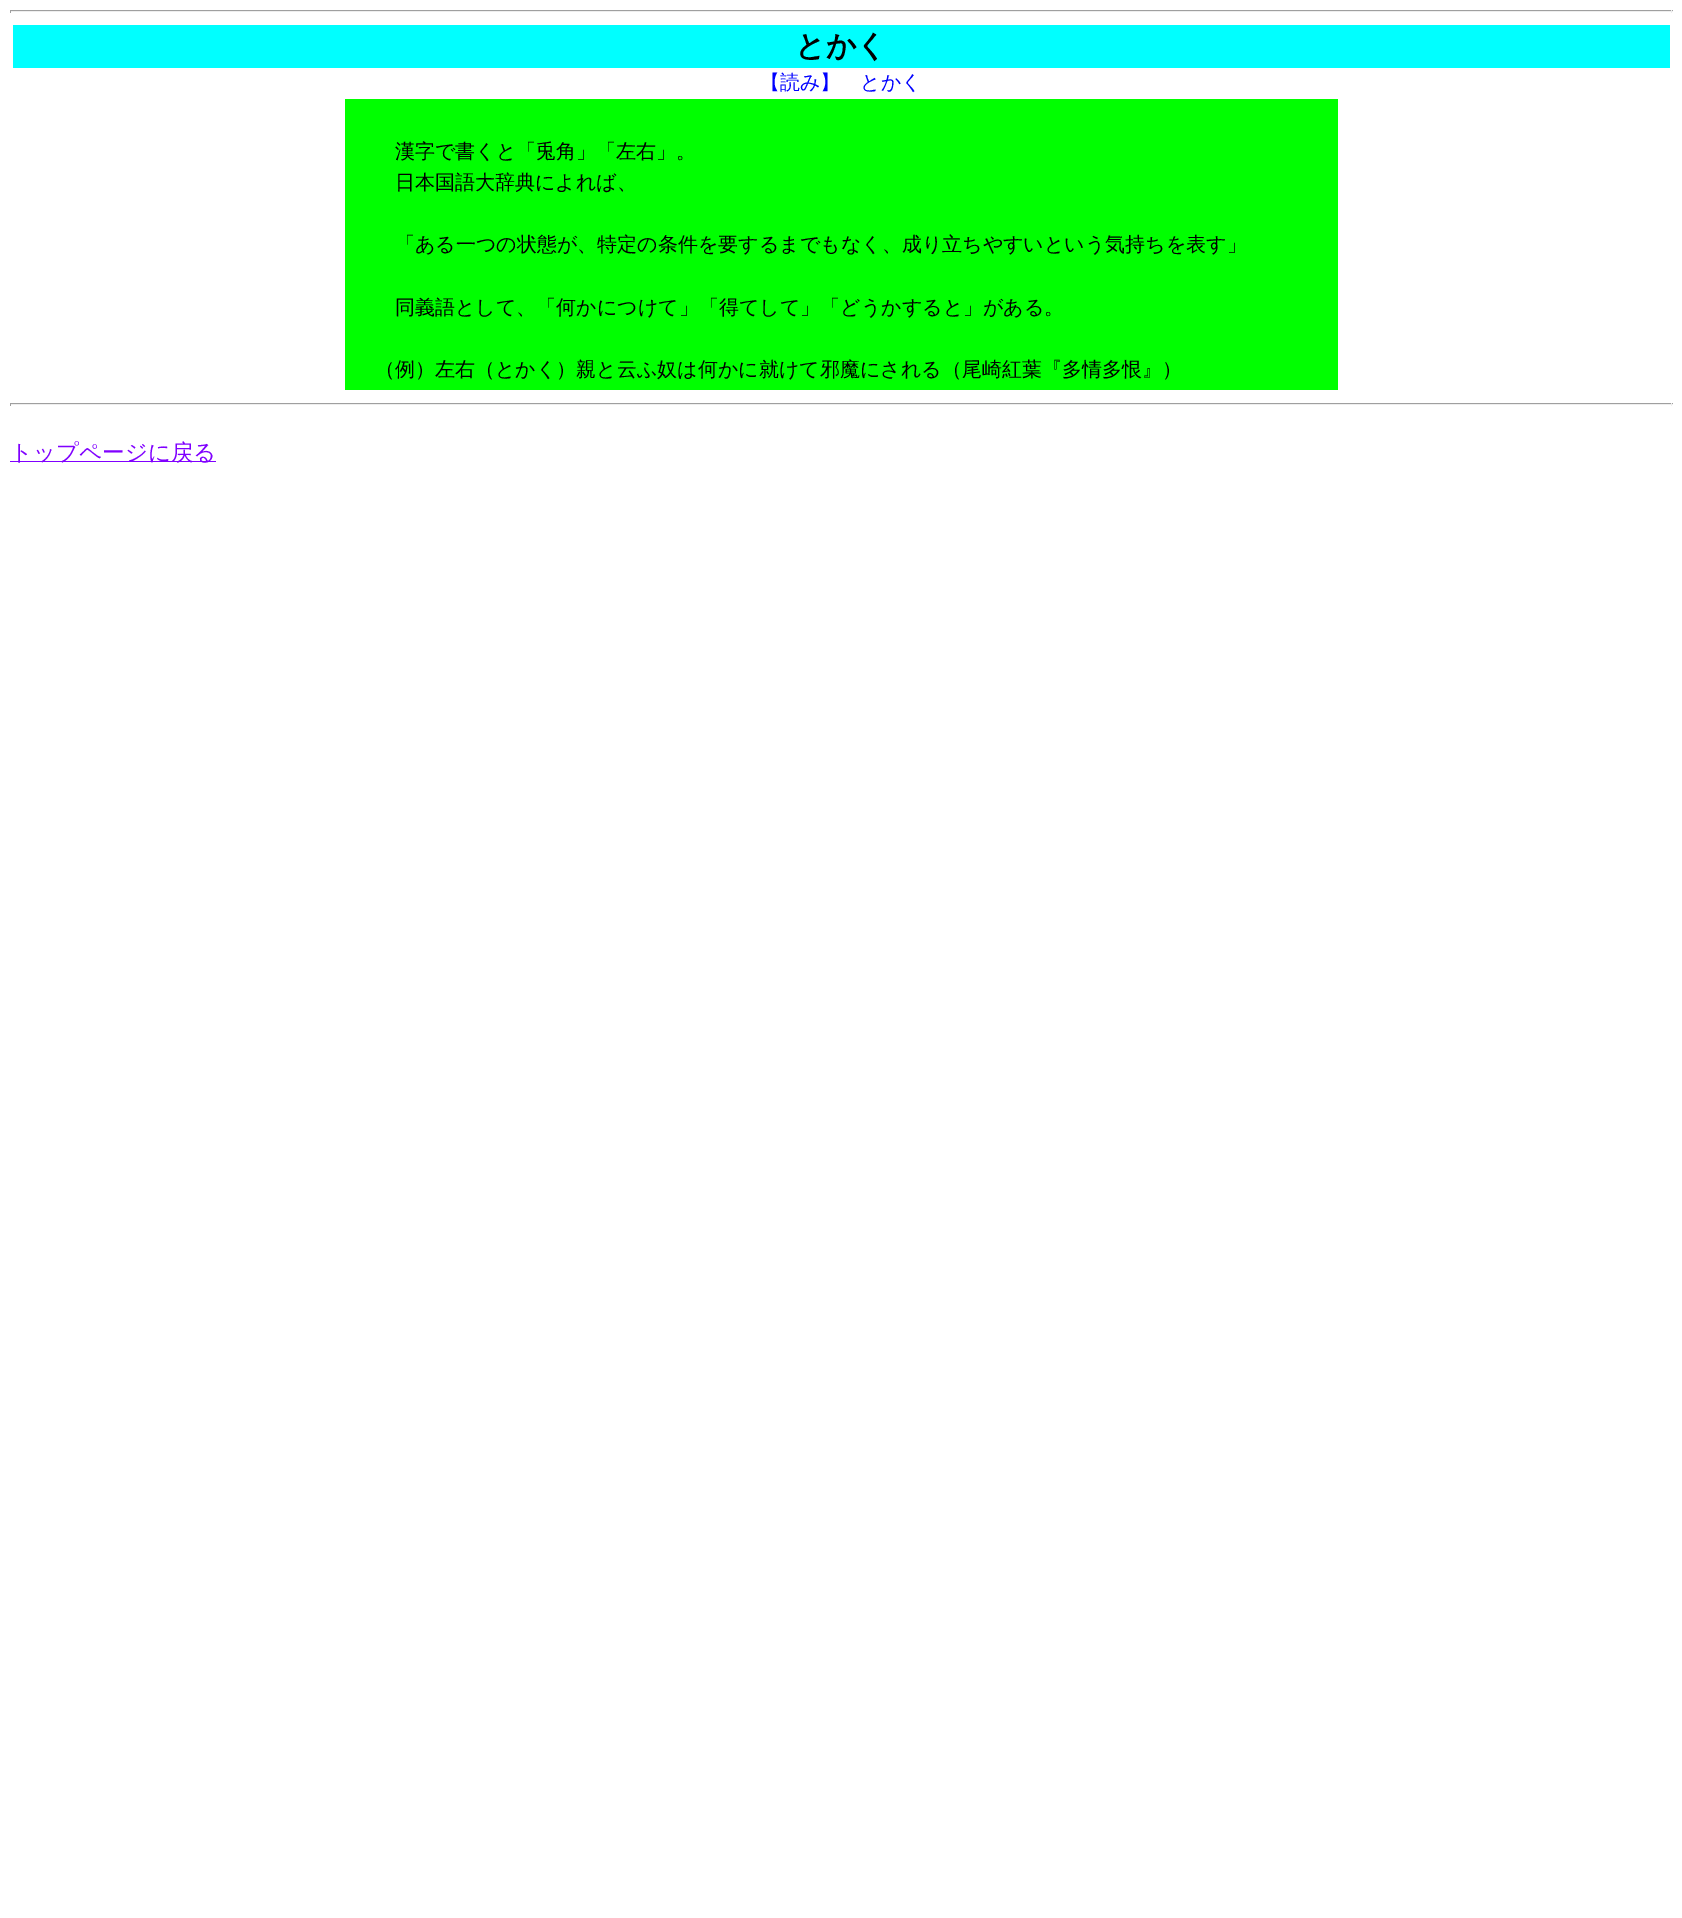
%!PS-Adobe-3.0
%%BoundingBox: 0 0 1682 1918
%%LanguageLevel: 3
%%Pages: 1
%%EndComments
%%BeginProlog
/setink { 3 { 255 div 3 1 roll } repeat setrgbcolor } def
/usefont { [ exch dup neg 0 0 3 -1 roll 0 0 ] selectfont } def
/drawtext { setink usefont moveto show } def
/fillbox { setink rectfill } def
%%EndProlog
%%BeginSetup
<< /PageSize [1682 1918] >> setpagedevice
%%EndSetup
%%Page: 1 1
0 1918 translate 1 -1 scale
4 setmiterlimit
0 0 1682 1918 255 255 255 fillbox
10 10 1663 1 159 159 159 fillbox
1671 10 1 3 238 238 238 fillbox
10 11 1663 1 238 238 238 fillbox
10 10 1 3 159 159 159 fillbox
13 25 1657 43 0 255 255 fillbox
(とかく) 795 56 /WenQuanYiZenHei-Bold 30 0 0 0 drawtext
(【読み】　とかく) 760 89 /WenQuanYiZenHei-Medium 20 0 0 255 drawtext
345 99 993 291 0 255 0 fillbox
(漢字で書くと「兎角」「左右」。) 395 158 /WenQuanYiZenHei-Medium 20 0 0 0 drawtext
(日本国語大辞典によれば、) 395 189 /WenQuanYiZenHei-Medium 20 0 0 0 drawtext
(「ある一つの状態が、特定の条件を要するまでもなく、成り立ちやすいという気持ちを表す」) 395 251 /WenQuanYiZenHei-Medium 20 0 0 0 drawtext
(同義語として、「何かにつけて」「得てして」「どうかすると」がある。) 395 314 /WenQuanYiZenHei-Medium 20 0 0 0 drawtext
(（例）左右（とかく）親と云ふ奴は何かに就けて邪魔にされる（尾崎紅葉『多情多恨』）) 375 376 /WenQuanYiZenHei-Medium 20 0 0 0 drawtext
10 403 1663 1 159 159 159 fillbox
1671 403 1 3 238 238 238 fillbox
10 404 1663 1 238 238 238 fillbox
10 403 1 3 159 159 159 fillbox
10 461 206 1 128 0 255 fillbox
(トップページに戻る) 10 460 /WenQuanYiZenHei-Medium 22.5 128 0 255 drawtext
showpage
%%EOF
